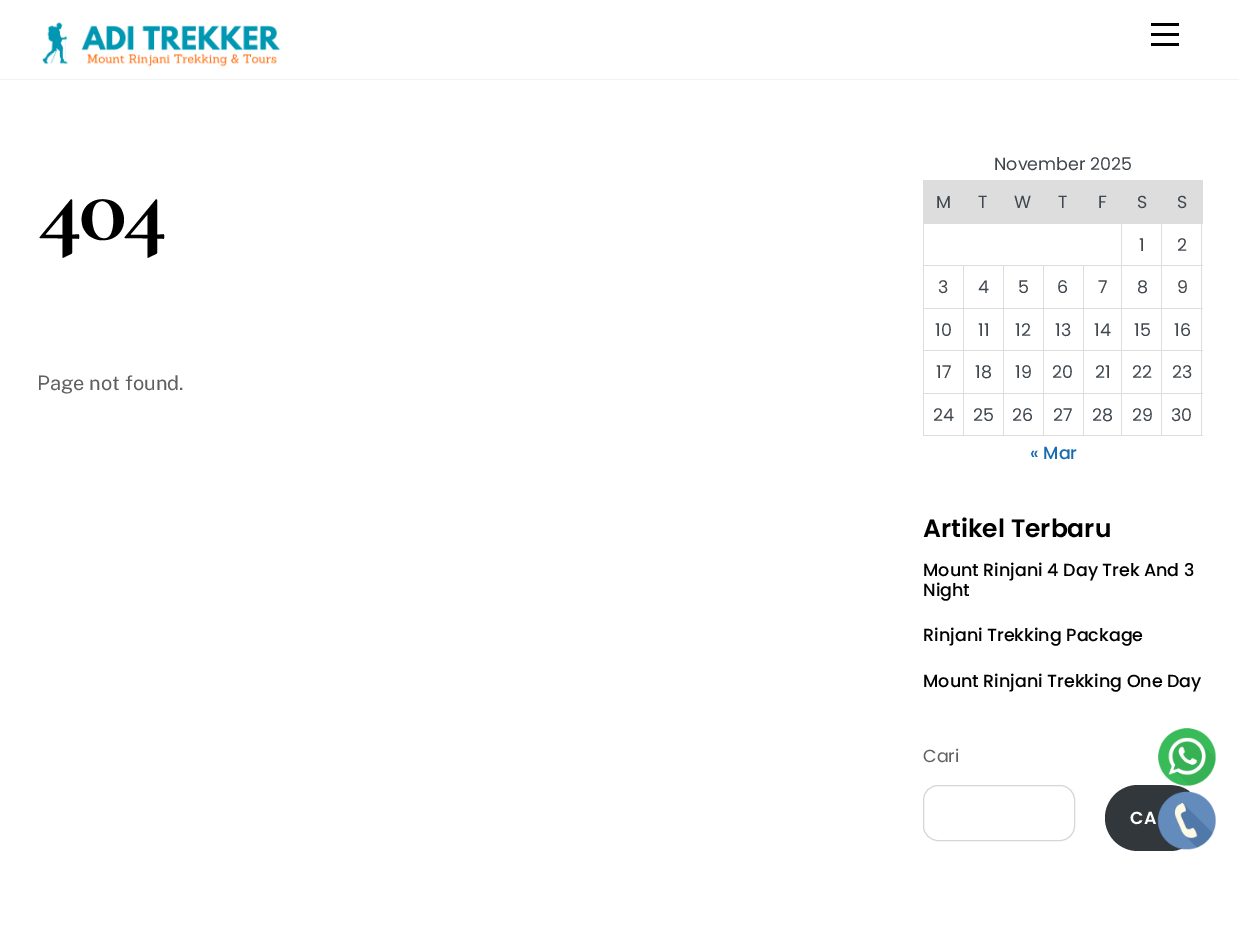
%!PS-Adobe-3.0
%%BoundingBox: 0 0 1239 939
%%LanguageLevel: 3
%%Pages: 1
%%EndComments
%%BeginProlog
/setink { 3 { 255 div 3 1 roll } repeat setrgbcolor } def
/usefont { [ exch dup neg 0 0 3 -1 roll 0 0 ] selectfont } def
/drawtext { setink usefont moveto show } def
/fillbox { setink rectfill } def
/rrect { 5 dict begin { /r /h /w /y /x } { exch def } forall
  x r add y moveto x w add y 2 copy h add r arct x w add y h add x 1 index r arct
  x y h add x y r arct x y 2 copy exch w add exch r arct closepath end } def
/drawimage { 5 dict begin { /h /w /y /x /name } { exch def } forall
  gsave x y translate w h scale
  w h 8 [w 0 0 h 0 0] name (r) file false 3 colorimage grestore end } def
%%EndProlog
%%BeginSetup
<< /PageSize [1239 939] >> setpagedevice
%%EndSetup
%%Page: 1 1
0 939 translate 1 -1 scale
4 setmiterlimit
0 0 1239 939 255 255 255 fillbox
0 79 1239 1 242 242 242 fillbox
(assets/img1.rgb) 42 22 239 45 drawimage
1151 43 28 3 0 0 0 fillbox
1151 23 28 3 0 0 0 fillbox
1151 33 28 3 0 0 0 fillbox
/CormorantGaramond-Bold 100 usefont
37 239 moveto -4 0 (404) ashow
(Page not found.) 37 390 /PublicSans-Regular 20 96 96 96 drawtext
(November 2025) 994 170 /Poppins-Regular 17.5 64 70 77 drawtext
924 181 199 42 221 221 221 fillbox
923 180 280 1 221 221 221 fillbox
1161 265 42 1 221 221 221 fillbox
1161 308 42 1 221 221 221 fillbox
1161 350 42 1 221 221 221 fillbox
1161 393 42 1 221 221 221 fillbox
1201 393 1 43 221 221 221 fillbox
1161 435 42 1 221 221 221 fillbox
1161 393 1 43 221 221 221 fillbox
1121 393 42 1 221 221 221 fillbox
1161 350 1 44 221 221 221 fillbox
1121 350 42 1 221 221 221 fillbox
1161 308 1 43 221 221 221 fillbox
1121 308 42 1 221 221 221 fillbox
1161 265 1 44 221 221 221 fillbox
1121 265 42 1 221 221 221 fillbox
1121 435 42 1 221 221 221 fillbox
1121 393 1 43 221 221 221 fillbox
1083 393 40 1 221 221 221 fillbox
1121 350 1 44 221 221 221 fillbox
1083 350 40 1 221 221 221 fillbox
1121 308 1 43 221 221 221 fillbox
1083 308 40 1 221 221 221 fillbox
1121 265 1 44 221 221 221 fillbox
1083 265 40 1 221 221 221 fillbox
1121 223 1 43 221 221 221 fillbox
923 223 200 1 221 221 221 fillbox
1083 435 40 1 221 221 221 fillbox
1083 393 1 43 221 221 221 fillbox
1043 393 41 1 221 221 221 fillbox
1083 350 1 44 221 221 221 fillbox
1043 350 41 1 221 221 221 fillbox
1083 308 1 43 221 221 221 fillbox
1043 308 41 1 221 221 221 fillbox
1083 265 1 44 221 221 221 fillbox
1043 265 41 1 221 221 221 fillbox
1043 435 41 1 221 221 221 fillbox
1043 393 1 43 221 221 221 fillbox
1003 393 41 1 221 221 221 fillbox
1043 350 1 44 221 221 221 fillbox
1003 350 41 1 221 221 221 fillbox
1043 308 1 43 221 221 221 fillbox
1003 308 41 1 221 221 221 fillbox
1043 265 1 44 221 221 221 fillbox
1003 265 41 1 221 221 221 fillbox
1003 435 41 1 221 221 221 fillbox
1003 393 1 43 221 221 221 fillbox
963 393 41 1 221 221 221 fillbox
1003 350 1 44 221 221 221 fillbox
963 350 41 1 221 221 221 fillbox
1003 308 1 43 221 221 221 fillbox
963 308 41 1 221 221 221 fillbox
1003 265 1 44 221 221 221 fillbox
963 265 41 1 221 221 221 fillbox
963 435 41 1 221 221 221 fillbox
963 393 1 43 221 221 221 fillbox
923 393 41 1 221 221 221 fillbox
963 350 1 44 221 221 221 fillbox
923 350 41 1 221 221 221 fillbox
963 308 1 43 221 221 221 fillbox
923 308 41 1 221 221 221 fillbox
963 265 1 44 221 221 221 fillbox
923 265 41 1 221 221 221 fillbox
923 435 41 1 221 221 221 fillbox
923 393 1 43 221 221 221 fillbox
923 350 1 44 221 221 221 fillbox
923 308 1 43 221 221 221 fillbox
923 265 1 44 221 221 221 fillbox
923 223 1 43 221 221 221 fillbox
923 180 1 44 221 221 221 fillbox
(M) 936 208 /Poppins-Regular 17.5 64 70 77 drawtext
(T) 978 208 /Poppins-Regular 17.5 64 70 77 drawtext
(W) 1014 208 /Poppins-Regular 17.5 64 70 77 drawtext
(T) 1058 208 /Poppins-Regular 17.5 64 70 77 drawtext
(F) 1098 208 /Poppins-Regular 17.5 64 70 77 drawtext
1123 181 80 43 221 221 221 fillbox
(S) 1137 208 /Poppins-Regular 17.5 64 70 77 drawtext
(S) 1177 208 /Poppins-Regular 17.5 64 70 77 drawtext
(1) 1139 251 /Poppins-Regular 17.5 64 70 77 drawtext
1161 223 1 43 221 221 221 fillbox
(2) 1177 251 /Poppins-Regular 17.5 64 70 77 drawtext
(3) 938 293 /Poppins-Regular 17.5 64 70 77 drawtext
(4) 978 293 /Poppins-Regular 17.5 64 70 77 drawtext
(5) 1018 293 /Poppins-Regular 17.5 64 70 77 drawtext
(6) 1057 293 /Poppins-Regular 17.5 64 70 77 drawtext
(7) 1098 293 /Poppins-Regular 17.5 64 70 77 drawtext
(8) 1137 293 /Poppins-Regular 17.5 64 70 77 drawtext
1201 350 1 44 221 221 221 fillbox
1201 308 1 43 221 221 221 fillbox
1201 223 1 86 221 221 221 fillbox
(9) 1177 293 /Poppins-Regular 17.5 64 70 77 drawtext
(10) 935 336 /Poppins-Regular 17.5 64 70 77 drawtext
(11) 978 336 /Poppins-Regular 17.5 64 70 77 drawtext
(12) 1015 336 /Poppins-Regular 17.5 64 70 77 drawtext
(13) 1055 336 /Poppins-Regular 17.5 64 70 77 drawtext
(14) 1094 336 /Poppins-Regular 17.5 64 70 77 drawtext
(15) 1134 336 /Poppins-Regular 17.5 64 70 77 drawtext
(16) 1174 336 /Poppins-Regular 17.5 64 70 77 drawtext
(17) 936 378 /Poppins-Regular 17.5 64 70 77 drawtext
(18) 975 378 /Poppins-Regular 17.5 64 70 77 drawtext
(19) 1015 378 /Poppins-Regular 17.5 64 70 77 drawtext
(20) 1052 378 /Poppins-Regular 17.5 64 70 77 drawtext
(21) 1095 378 /Poppins-Regular 17.5 64 70 77 drawtext
(22) 1132 378 /Poppins-Regular 17.5 64 70 77 drawtext
(23) 1172 378 /Poppins-Regular 17.5 64 70 77 drawtext
(24) 933 421 /Poppins-Regular 17.5 64 70 77 drawtext
(25) 973 421 /Poppins-Regular 17.5 64 70 77 drawtext
(26) 1012 421 /Poppins-Regular 17.5 64 70 77 drawtext
(27) 1053 421 /Poppins-Regular 17.5 64 70 77 drawtext
(28) 1092 421 /Poppins-Regular 17.5 64 70 77 drawtext
(29) 1132 421 /Poppins-Regular 17.5 64 70 77 drawtext
(30) 1171 421 /Poppins-Regular 17.5 64 70 77 drawtext
(« Mar) 1030 459 /Poppins-Medium 17.5 24 107 177 drawtext
(Artikel Terbaru) 923 537 /Poppins-SemiBold 25 0 0 0 drawtext
(Mount Rinjani 4 Day Trek And 3) 923 576 /Poppins-Medium 17.5 0 0 0 drawtext
(Night) 923 596 /Poppins-Medium 17.5 0 0 0 drawtext
(Rinjani Trekking Package) 923 641 /Poppins-Medium 17.5 0 0 0 drawtext
(Mount Rinjani Trekking One Day) 923 687 /Poppins-Medium 17.5 0 0 0 drawtext
(Cari) 923 762 /Poppins-Regular 17.5 96 96 96 drawtext
215 213 213 setink
923.5 785.5 151 55 14.5 rrect stroke
50 55 60 setink
1105 785 98 66 33 rrect fill
/Poppins-SemiBold 17.5 usefont
255 255 255 setink
1130 824 moveto 1 0 (CA) ashow
(assets/img2.rgb) 1158 728 58 58 drawimage
(assets/img3.rgb) 1157 791 59 59 drawimage
showpage
%%EOF
